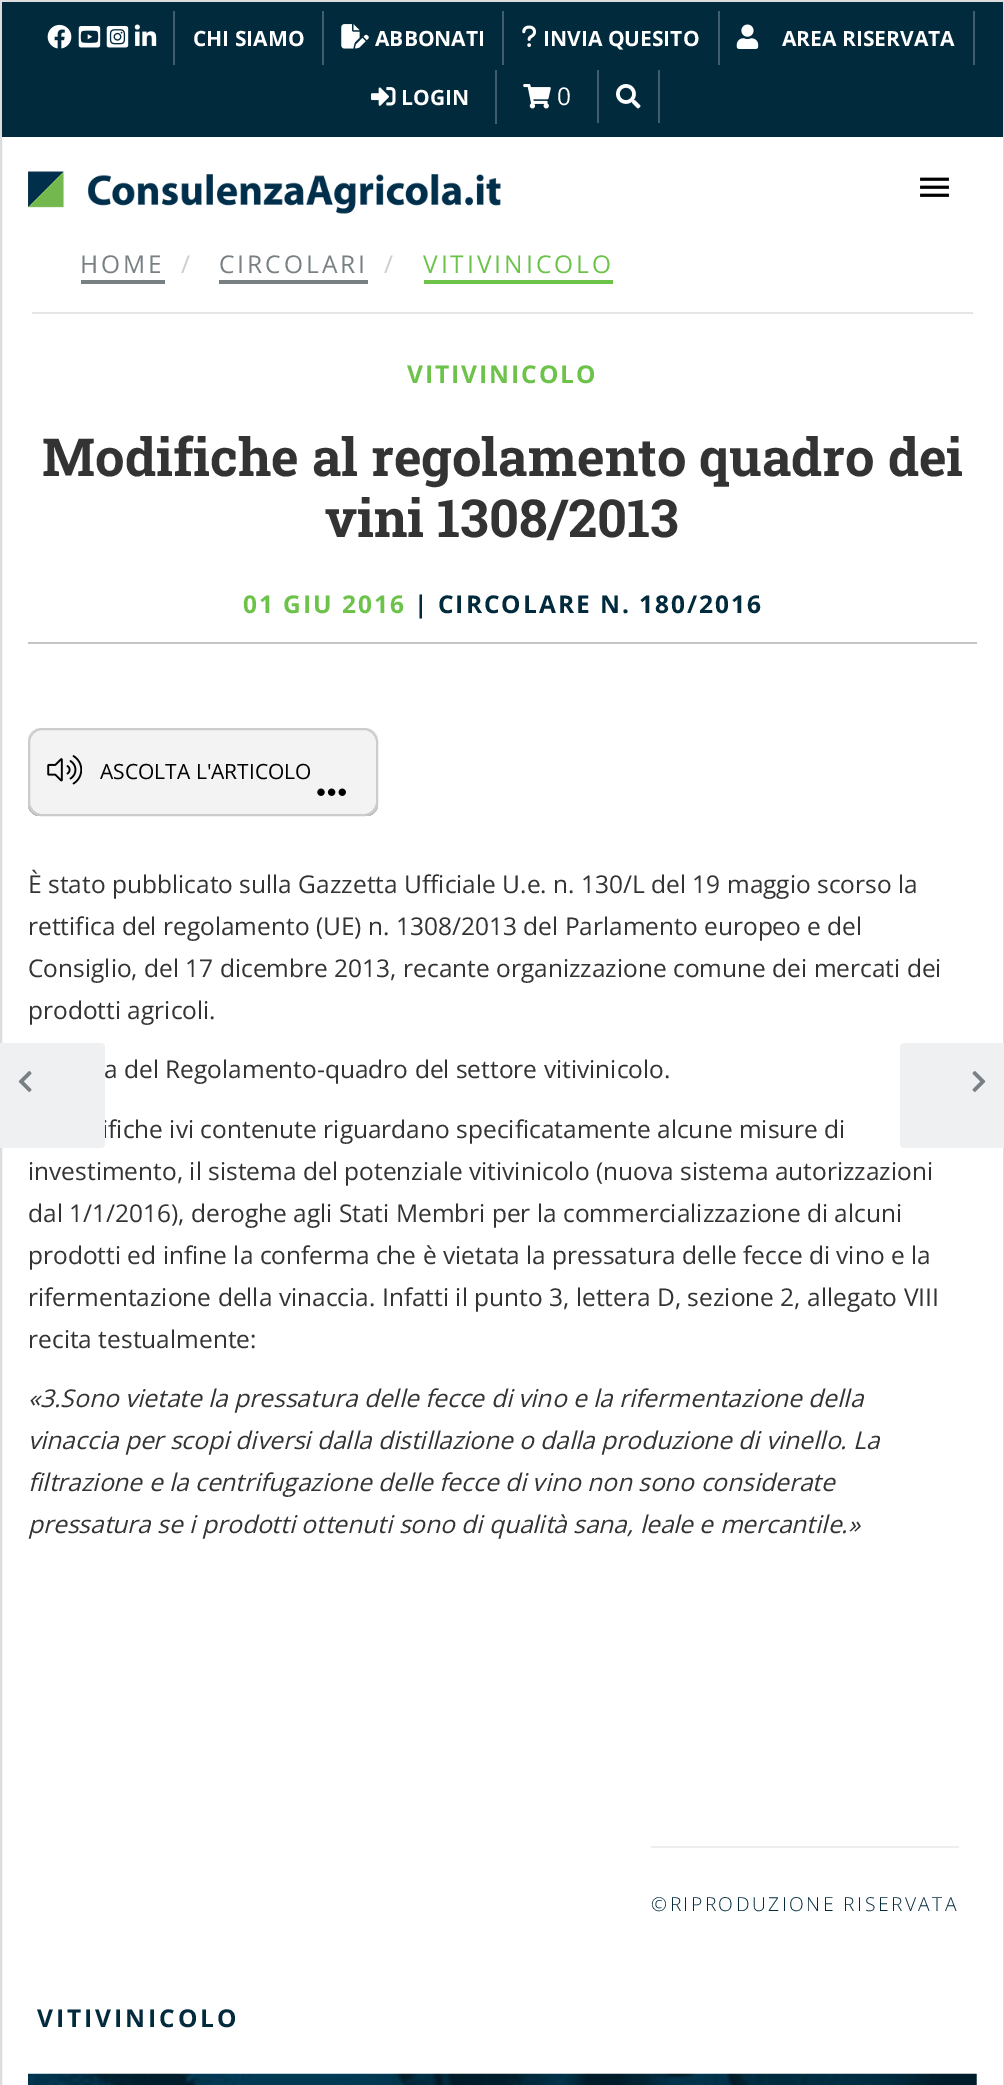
%!PS-Adobe-3.0
%%BoundingBox: 0 0 1004 2085
%%LanguageLevel: 3
%%Pages: 1
%%EndComments
%%BeginProlog
/setink { 3 { 255 div 3 1 roll } repeat setrgbcolor } def
/usefont { [ exch dup neg 0 0 3 -1 roll 0 0 ] selectfont } def
/drawtext { setink usefont moveto show } def
/fillbox { setink rectfill } def
/rrect { 5 dict begin { /r /h /w /y /x } { exch def } forall
  x r add y moveto x w add y 2 copy h add r arct x w add y h add x 1 index r arct
  x y h add x y r arct x y 2 copy exch w add exch r arct closepath end } def
/drawimage { 5 dict begin { /h /w /y /x /name } { exch def } forall
  gsave x y translate w h scale
  w h 8 [w 0 0 h 0 0] name (r) file false 3 colorimage grestore end } def
%%EndProlog
%%BeginSetup
<< /PageSize [1004 2085] >> setpagedevice
%%EndSetup
%%Page: 1 1
0 2085 translate 1 -1 scale
4 setmiterlimit
0 0 1004 2085 255 255 255 fillbox
976 2074 1 11 128 149 158 fillbox
221 221 221 setink
2 setlinewidth
1 1 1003 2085 rectstroke
2 2 1001 135 1 42 61 fillbox
(assets/img1.rgb) 47 24 25 25 drawimage
(assets/img2.rgb) 78 26 23 22 drawimage
(assets/img3.rgb) 106 26 23 22 drawimage
(assets/img4.rgb) 134 24 23 22 drawimage
173 11 2 54 64 95 109 fillbox
(CHI SIAMO) 193 46 /OpenSans-Bold 21 255 255 255 drawtext
322 11 2 54 64 95 109 fillbox
(assets/img5.rgb) 341 24 28 25 drawimage
(ABBONATI) 375 46 /OpenSans-Bold 21 255 255 255 drawtext
502 11 2 54 64 95 109 fillbox
(assets/img6.rgb) 522 25 15 22 drawimage
(INVIA QUESITO) 543 46 /OpenSans-Bold 21 255 255 255 drawtext
973 11 2 54 64 95 109 fillbox
718 11 2 54 64 95 109 fillbox
(assets/img7.rgb) 736 24 23 25 drawimage
(AREA RISERVATA) 782 46 /OpenSans-Bold 21 255 255 255 drawtext
495 70 2 54 64 95 109 fillbox
(assets/img8.rgb) 371 87 25 19 drawimage
(LOGIN) 401 105 /OpenSans-Bold 21 255 255 255 drawtext
597 70 2 53 64 95 109 fillbox
(assets/img9.rgb) 523 84 28 25 drawimage
(0) 557 105 /OpenSans-Regular 24.5 255 255 255 drawtext
658 70 2 53 64 95 109 fillbox
(assets/img10.rgb) 616 84 25 25 drawimage
(assets/img11.rgb) 28 171 473 43 drawimage
(assets/img12.rgb) 920 177 29 20 drawimage
32 312 941 2 229 229 229 fillbox
120 128 132 setink
80 273 moveto 3 0 (HOME) ashow
81 280 84 4 120 128 132 fillbox
(/) 181 273 /OpenSans-Regular 24.5 204 204 204 drawtext
120 128 132 setink
219 273 moveto 3 0 (CIRCOLARI) ashow
219 280 149 4 120 128 132 fillbox
(/) 384 273 /OpenSans-Regular 24.5 204 204 204 drawtext
109 195 74 setink
423 273 moveto 3 0 (VITIVINICOLO) ashow
424 280 189 4 109 195 74 fillbox
/OpenSans-Bold 24.5 usefont
407 383 moveto 2 0 (VITIVINICOLO) ashow
(Modifiche al regolamento quadro dei) 42 476 /RobotoSlab-Bold 52.5 51 51 51 drawtext
(vini 1308/2013) 325 537 /RobotoSlab-Bold 52.5 51 51 51 drawtext
/OpenSans-Bold 24.5 usefont
109 195 74 setink
243 613 moveto 2 0 (01 GIU 2016) ashow
1 42 61 setink
414 613 moveto 2 0 (| CIRCOLARE N. 180/2016) ashow
28 642 949 2 197 197 197 fillbox
gsave 28 728 350 88 12 rrect clip newpath
<< /ShadingType 2 /ColorSpace /DeviceRGB /Coords [203 728 203 816] /Extend [true true] /Function << /FunctionType 3 /Domain [0 1] /Functions [<< /FunctionType 2 /Domain [0 1] /C0 [0.965 0.965 0.965] /C1 [0.965 0.965 0.965] /N 1 >> << /FunctionType 2 /Domain [0 1] /C0 [0.965 0.965 0.965] /C1 [0.725 0.725 0.725] /N 1 >>] /Bounds [0.48] /Encode [0 1 0 1] >> >> shfill grestore
243 243 243 setink
29 729 348 86 13 rrect gsave fill grestore
204 204 204 setink
stroke
(assets/img13.rgb) 47 755 35 30 drawimage
(ASCOLTA L'ARTICOLO) 100 779 /OpenSans-Regular 21 0 0 0 drawtext
(assets/img14.rgb) 317 788 29 8 drawimage
(È) 28 893 /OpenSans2-Regular 24.5 51 51 51 drawtext
(stato pubblicato sulla Gazzetta Ufficiale U.e. n. 130/L del 19 maggio scorso la) 48 893 /OpenSans-Regular 24.5 51 51 51 drawtext
(rettifica del regolamento \(UE\) n. 1308/2013 del Parlamento europeo e del) 28 935 /OpenSans-Regular 24.5 51 51 51 drawtext
(Consiglio, del 17 dicembre 2013, recante organizzazione comune dei mercati dei) 28 977 /OpenSans-Regular 24.5 51 51 51 drawtext
(prodotti agricoli.) 28 1019 /OpenSans-Regular 24.5 51 51 51 drawtext
(a del Regolamento-quadro del settore vitivinicolo.) 104 1078 /OpenSans-Regular 24.5 51 51 51 drawtext
(ifiche ivi contenute riguardano specificatamente alcune misure di) 102 1138 /OpenSans-Regular 24.5 51 51 51 drawtext
(investimento, il sistema del potenziale vitivinicolo \(nuova sistema autorizzazioni) 28 1180 /OpenSans-Regular 24.5 51 51 51 drawtext
(dal 1/1/2016\), deroghe agli Stati Membri per la commercializzazione di alcuni) 28 1222 /OpenSans-Regular 24.5 51 51 51 drawtext
(prodotti ed infine la conferma che) 28 1264 /OpenSans-Regular 24.5 51 51 51 drawtext
(è) 423 1264 /OpenSans2-Regular 24.5 51 51 51 drawtext
(vietata la pressatura delle fecce di vino e la) 443 1264 /OpenSans-Regular 24.5 51 51 51 drawtext
(rifermentazione della vinaccia. Infatti il punto 3, lettera D, sezione 2, allegato VIII) 28 1306 /OpenSans-Regular 24.5 51 51 51 drawtext
(recita testualmente:) 28 1348 /OpenSans-Regular 24.5 51 51 51 drawtext
(«) 28 1407 /OpenSans-Italic 24.5 51 51 51 drawtext
(3.Sono vietate la pressatura delle fecce di vino e la rifermentazione della) 40 1407 /OpenSans2-Italic 24.5 51 51 51 drawtext
(vinaccia per scopi diversi dalla distillazione o dalla produzione di vinello. La) 28 1449 /OpenSans2-Italic 24.5 51 51 51 drawtext
(filtrazione e la centrifugazione delle fecce di vino non sono considerate) 28 1491 /OpenSans2-Italic 24.5 51 51 51 drawtext
(pressatura se i prodotti ottenuti sono di qualit) 28 1533 /OpenSans2-Italic 24.5 51 51 51 drawtext
(à) 553 1533 /OpenSans-Italic 24.5 51 51 51 drawtext
(sana, leale e mercantile.) 573 1533 /OpenSans2-Italic 24.5 51 51 51 drawtext
(») 848 1533 /OpenSans-Italic 24.5 51 51 51 drawtext
651 1846 308 2 238 238 238 fillbox
/OpenSans-Light 19.25 usefont
1 42 61 setink
651 1911 moveto 2.5 0 (©RIPRODUZIONE RISERVATA) ashow
238 240 241 setink
0 1043 moveto 101 1043 lineto 103 1043 105 1045 105 1047 curveto 105 1144 lineto 105 1146 103 1148 101 1148 curveto 0 1148 lineto closepath fill
(assets/img15.rgb) 18 1071 14 21 drawimage
904 1043 moveto 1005 1043 lineto 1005 1148 lineto 904 1148 lineto 902 1148 900 1146 900 1144 curveto 900 1047 lineto 900 1045 902 1043 904 1043 curveto closepath fill
(assets/img16.rgb) 972 1071 14 21 drawimage
/OpenSans-Bold 24.5 usefont
1 42 61 setink
37 2027 moveto 3 0 (VITIVINICOLO) ashow
(assets/img17.rgb) 28 2073 949 12 drawimage
showpage
%%EOF
